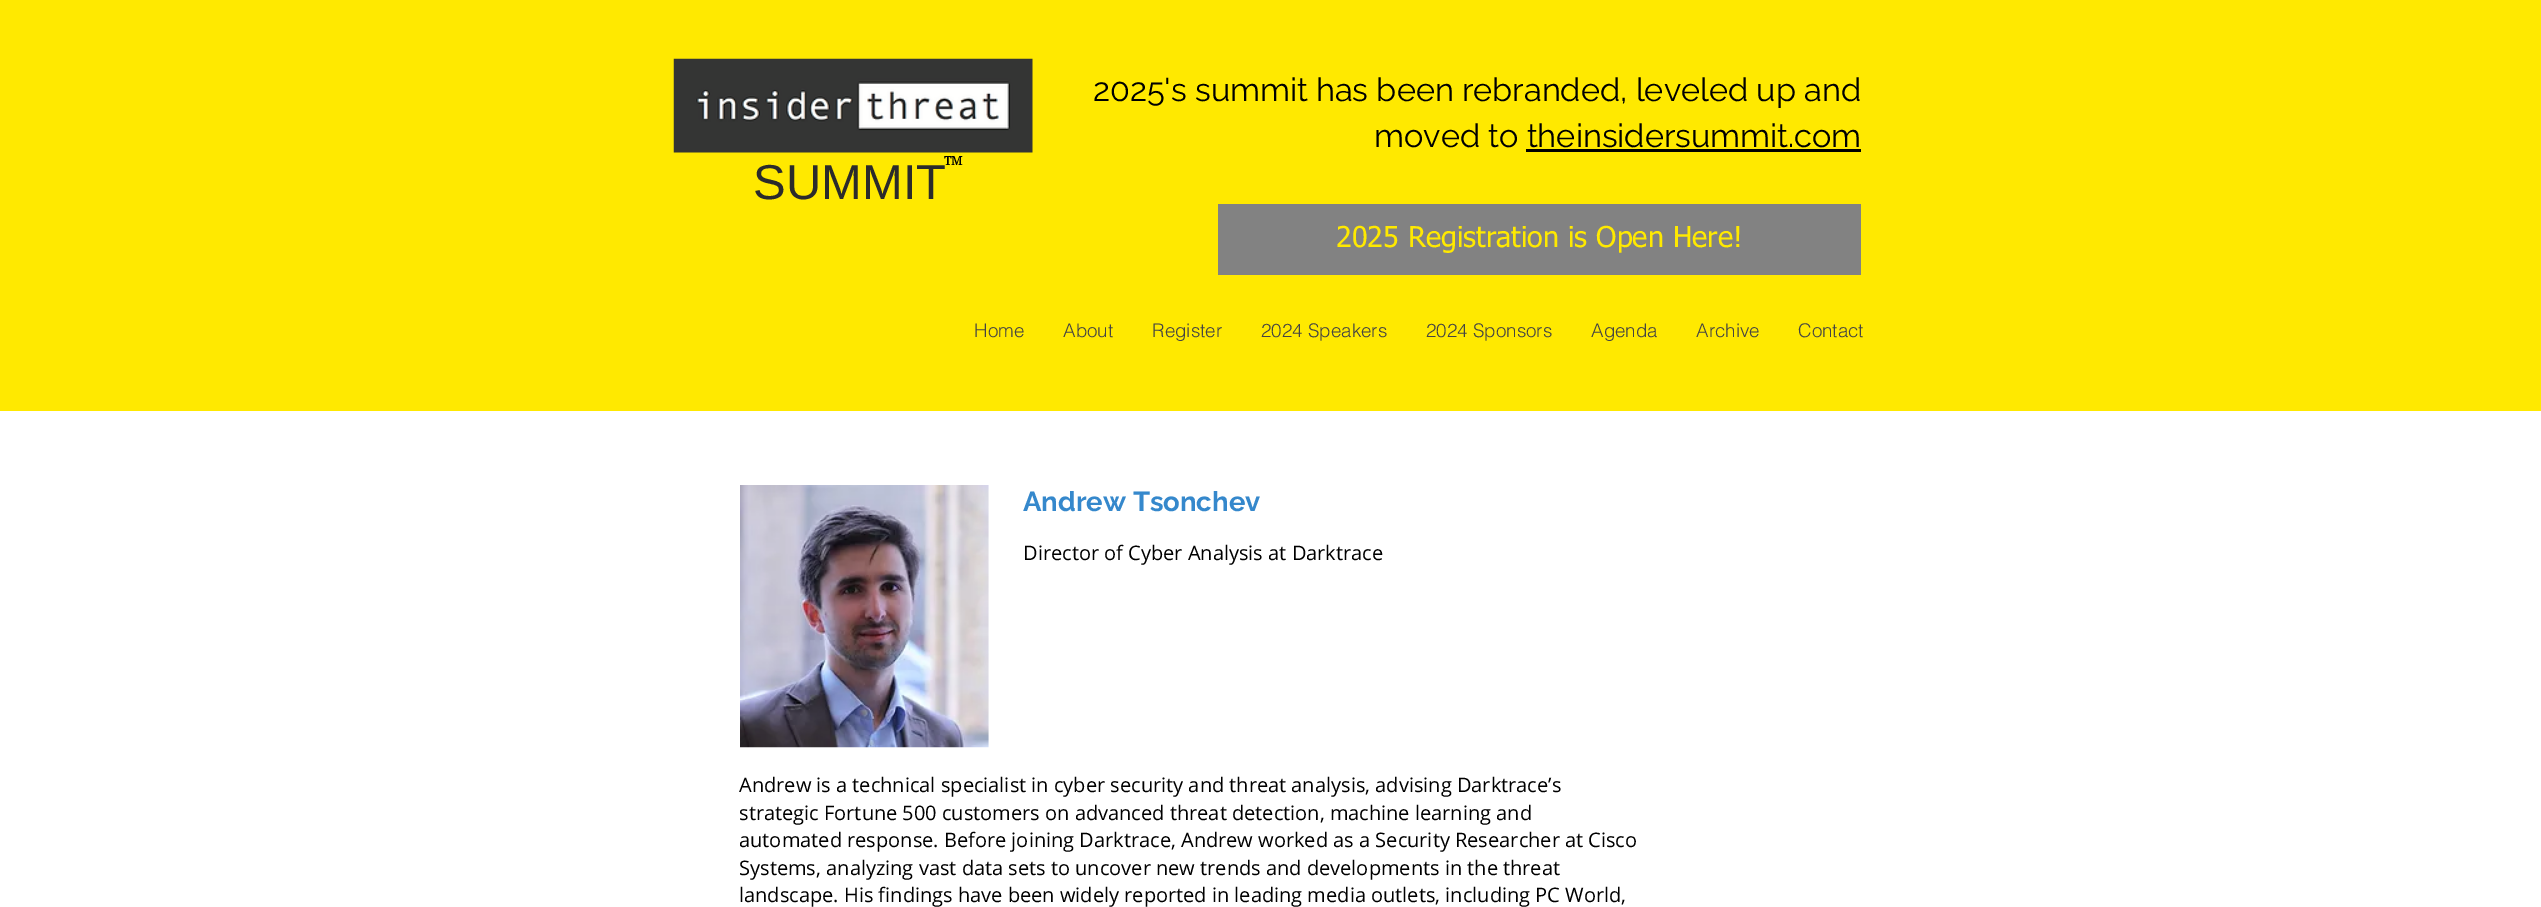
%!PS-Adobe-3.0
%%BoundingBox: 0 0 2541 907
%%LanguageLevel: 3
%%Pages: 1
%%EndComments
%%BeginProlog
/setink { 3 { 255 div 3 1 roll } repeat setrgbcolor } def
/usefont { [ exch dup neg 0 0 3 -1 roll 0 0 ] selectfont } def
/drawtext { setink usefont moveto show } def
/fillbox { setink rectfill } def
/drawimage { 5 dict begin { /h /w /y /x /name } { exch def } forall
  gsave x y translate w h scale
  w h 8 [w 0 0 h 0 0] name (r) file false 3 colorimage grestore end } def
%%EndProlog
%%BeginSetup
<< /PageSize [2541 907] >> setpagedevice
%%EndSetup
%%Page: 1 1
0 907 translate 1 -1 scale
4 setmiterlimit
0 0 2541 907 255 255 255 fillbox
0 0 2541 411 255 233 0 fillbox
(2025's summit has been rebranded, leveled up and) 1093 101 /Raleway-Regular 32.5 0 0 0 drawtext
(moved to theinsidersummit.com) 1374 147 /Raleway-Regular 32.5 0 0 0 drawtext
1526 149 335 3 0 0 0 fillbox
(assets/img1.rgb) 673 58 360 95 drawimage
(TM) 944 165 /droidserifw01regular-Bold 12 0 0 0 drawtext
(SUMMIT) 753 199 /LiberationSans-Regular 49 43 43 43 drawtext
1218 204 643 71 130 130 130 fillbox
(2025 Registration is Open Here!) 1336 247 /tahoma-Regular 28.75 255 233 0 drawtext
(Home) 974 337 /helvetica-Light 18.75 68 68 68 drawtext
(About) 1063 337 /helvetica-Light 18.75 68 68 68 drawtext
(Register) 1152 337 /helvetica-Light 18.75 68 68 68 drawtext
(2024 Speakers) 1261 337 /helvetica-Light 18.75 68 68 68 drawtext
(2024 Sponsors) 1426 337 /helvetica-Light 18.75 68 68 68 drawtext
(Agenda) 1591 337 /helvetica-Light 18.75 68 68 68 drawtext
(Archive) 1696 337 /helvetica-Light 18.75 68 68 68 drawtext
(Contact) 1798 337 /helvetica-Light 18.75 68 68 68 drawtext
(assets/img2.rgb) 740 485 249 263 drawimage
(Andrew Tsonchev) 1023 511 /Raleway-Bold 27.5 53 136 204 drawtext
(Director of Cyber Analysis at Darktrace) 1023 560 /OpenSans-Regular 20 0 0 0 drawtext
(Andrew is a technical specialist in cyber security and threat analysis, advising Darktrace’s) 739 792 /OpenSans-Regular 20 0 0 0 drawtext
(strategic Fortune 500 customers on advanced threat detection, machine learning and) 739 820 /OpenSans-Regular 20 0 0 0 drawtext
(automated response. Before joining Darktrace, Andrew worked as a Security Researcher at Cisco) 739 847 /OpenSans-Regular 20 0 0 0 drawtext
(Systems, analyzing vast data sets to uncover new trends and developments in the threat) 739 875 /OpenSans-Regular 20 0 0 0 drawtext
(landscape. His findings have been widely reported in leading media outlets, including PC World,) 739 902 /OpenSans-Regular 20 0 0 0 drawtext
showpage
%%EOF
